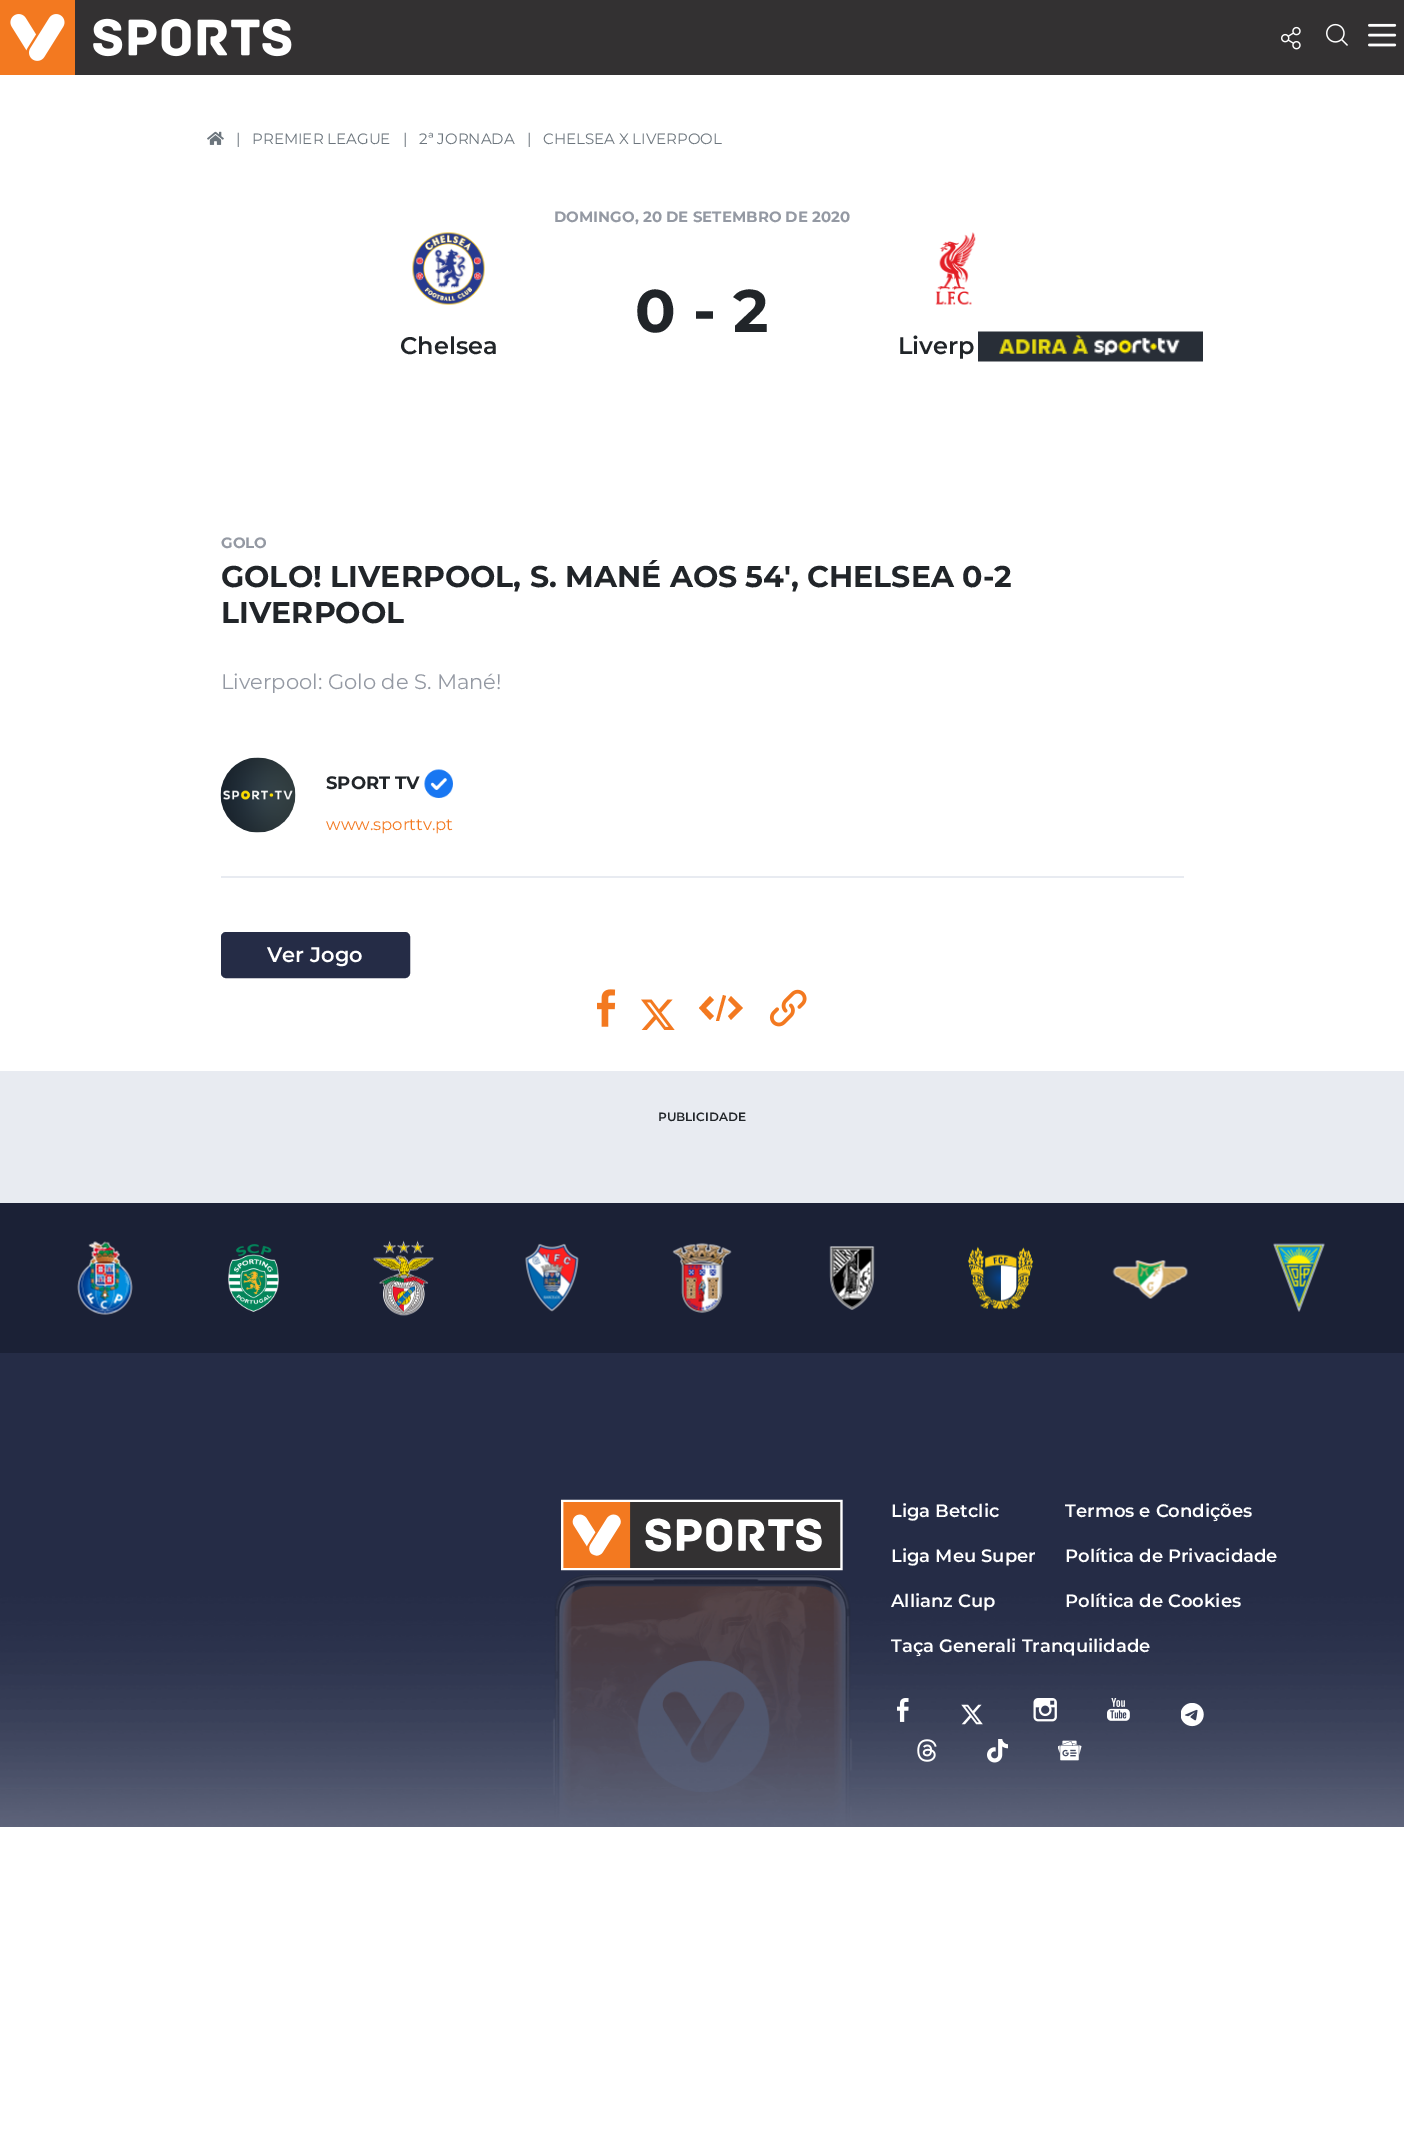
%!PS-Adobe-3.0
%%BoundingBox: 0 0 1404 2148
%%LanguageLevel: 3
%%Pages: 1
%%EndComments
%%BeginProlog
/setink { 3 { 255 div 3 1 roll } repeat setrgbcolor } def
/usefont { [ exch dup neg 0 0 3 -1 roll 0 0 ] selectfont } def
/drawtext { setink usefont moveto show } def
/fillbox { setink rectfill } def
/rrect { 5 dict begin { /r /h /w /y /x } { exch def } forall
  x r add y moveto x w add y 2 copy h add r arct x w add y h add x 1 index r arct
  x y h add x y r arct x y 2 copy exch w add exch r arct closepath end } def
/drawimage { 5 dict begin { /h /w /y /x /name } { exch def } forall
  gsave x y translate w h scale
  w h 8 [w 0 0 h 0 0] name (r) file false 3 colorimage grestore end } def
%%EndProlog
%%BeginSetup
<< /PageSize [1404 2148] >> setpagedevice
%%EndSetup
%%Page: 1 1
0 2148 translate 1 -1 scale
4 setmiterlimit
0 0 1404 2148 255 255 255 fillbox
75 0 1329 75 51 49 50 fillbox
0 0 75 75 243 121 32 fillbox
(assets/img1.rgb) 10 14 55 47 drawimage
(assets/img2.rgb) 93 18 199 39 drawimage
(assets/img3.rgb) 1281 26 20 24 drawimage
(assets/img4.rgb) 1326 23 22 23 drawimage
(assets/img5.rgb) 1368 23 29 24 drawimage
(assets/img6.rgb) 207 131 17 14 drawimage
(|) 236 144 /Montserrat-Regular 15 108 117 125 drawtext
(PREMIER LEAGUE) 252 144 /Montserrat-Regular 15 108 117 125 drawtext
(|) 403 144 /Montserrat-Regular 15 108 117 125 drawtext
(2ª JORNADA) 419 144 /Montserrat-Regular 15 108 117 125 drawtext
(|) 527 144 /Montserrat-Regular 15 108 117 125 drawtext
(CHELSEA X LIVERPOOL) 543 144 /Montserrat-Regular 15 108 117 125 drawtext
(DOMINGO, 20 DE SETEMBRO DE 2020) 554 222 /Montserrat-Bold 15 148 153 163 drawtext
(0 - 2) 635 332 /Montserrat-Bold 60 33 37 41 drawtext
(assets/img7.rgb) 412 232 73 73 drawimage
(Chelsea) 400 354 /Montserrat-SemiBold 24 33 37 41 drawtext
(assets/img8.rgb) 935 232 41 73 drawimage
(Liverp) 898 354 /Montserrat-SemiBold 24 33 37 41 drawtext
(assets/img9.rgb) 978 331 225 31 drawimage
(GOLO) 221 548 /Montserrat-Bold 15 148 153 163 drawtext
(GOLO! LIVERPOOL, S. MANÉ AOS 54', CHELSEA 0-2) 221 587 /Montserrat-Bold 30 33 37 41 drawtext
(LIVERPOOL) 221 623 /Montserrat-Bold 30 33 37 41 drawtext
(Liverpool: Golo de S. Mané!) 221 689 /Montserrat-Regular 21 148 153 163 drawtext
(assets/img10.rgb) 220 757 76 76 drawimage
(SPORT TV) 326 789 /Montserrat-Bold 18 33 37 41 drawtext
(assets/img11.rgb) 424 769 29 29 drawimage
(www.sporttv.pt) 326 830 /Montserrat-Regular 16.5 243 121 32 drawtext
221 876 963 2 232 235 241 fillbox
37 44 70 setink
222 933 187 44 4 rrect gsave fill grestore
2 setlinewidth
stroke
(Ver Jogo) 267 962 /Montserrat-SemiBold 21 255 255 255 drawtext
(assets/img12.rgb) 597 989 19 38 drawimage
(assets/img13.rgb) 641 999 34 31 drawimage
243 121 32 setink
728 1016 moveto 731 1020 lineto 743 1008 lineto 731 996 lineto 728 1000 lineto 736 1008 lineto closepath 714 1000 moveto 710 996 lineto 699 1008 lineto 710 1020 lineto 714 1016 lineto 706 1008 lineto closepath 723 995 moveto 726 996 lineto 719 1021 lineto 716 1021 lineto closepath fill
(assets/img14.rgb) 769 989 38 38 drawimage
0 1071 1404 132 232 235 241 fillbox
(PUBLICIDADE) 658 1121 /Montserrat-SemiBold 12 33 37 41 drawtext
0 1353 1404 221 37 44 70 fillbox
(assets/img15.rgb) 0 1574 1404 253 drawimage
0 1203 1404 150 27 33 54 fillbox
(assets/img16.rgb) 77 1241 56 74 drawimage
(assets/img17.rgb) 228 1244 51 68 drawimage
(assets/img18.rgb) 373 1240 61 76 drawimage
(assets/img19.rgb) 525 1243 54 69 drawimage
(assets/img20.rgb) 672 1243 60 70 drawimage
(assets/img21.rgb) 829 1246 46 64 drawimage
(assets/img22.rgb) 967 1246 67 64 drawimage
(assets/img23.rgb) 1112 1260 76 39 drawimage
(assets/img24.rgb) 1273 1243 52 69 drawimage
(assets/img25.rgb) 561 1499 282 72 drawimage
(Liga Betclic) 891 1517 /Montserrat-SemiBold 18 255 255 255 drawtext
(Liga Meu Super) 891 1562 /Montserrat-SemiBold 18 255 255 255 drawtext
(Allianz Cup) 891 1607 /Montserrat-SemiBold 18 255 255 255 drawtext
(Taça Generali Tranquilidade) 891 1652 /Montserrat-SemiBold 18 255 255 255 drawtext
(Termos e Condições) 1065 1517 /Montserrat-SemiBold 18 255 255 255 drawtext
(Política de Privacidade) 1065 1562 /Montserrat-SemiBold 18 255 255 255 drawtext
(Política de Cookies) 1065 1607 /Montserrat-SemiBold 18 255 255 255 drawtext
(assets/img26.rgb) 897 1698 12 24 drawimage
(assets/img27.rgb) 961 1704 22 21 drawimage
(assets/img28.rgb) 1033 1698 24 24 drawimage
(assets/img29.rgb) 1107 1698 23 23 drawimage
(assets/img30.rgb) 1181 1703 23 24 drawimage
(assets/img31.rgb) 917 1739 20 23 drawimage
(assets/img32.rgb) 987 1739 21 24 drawimage
(assets/img33.rgb) 1058 1740 24 21 drawimage
showpage
%%EOF
